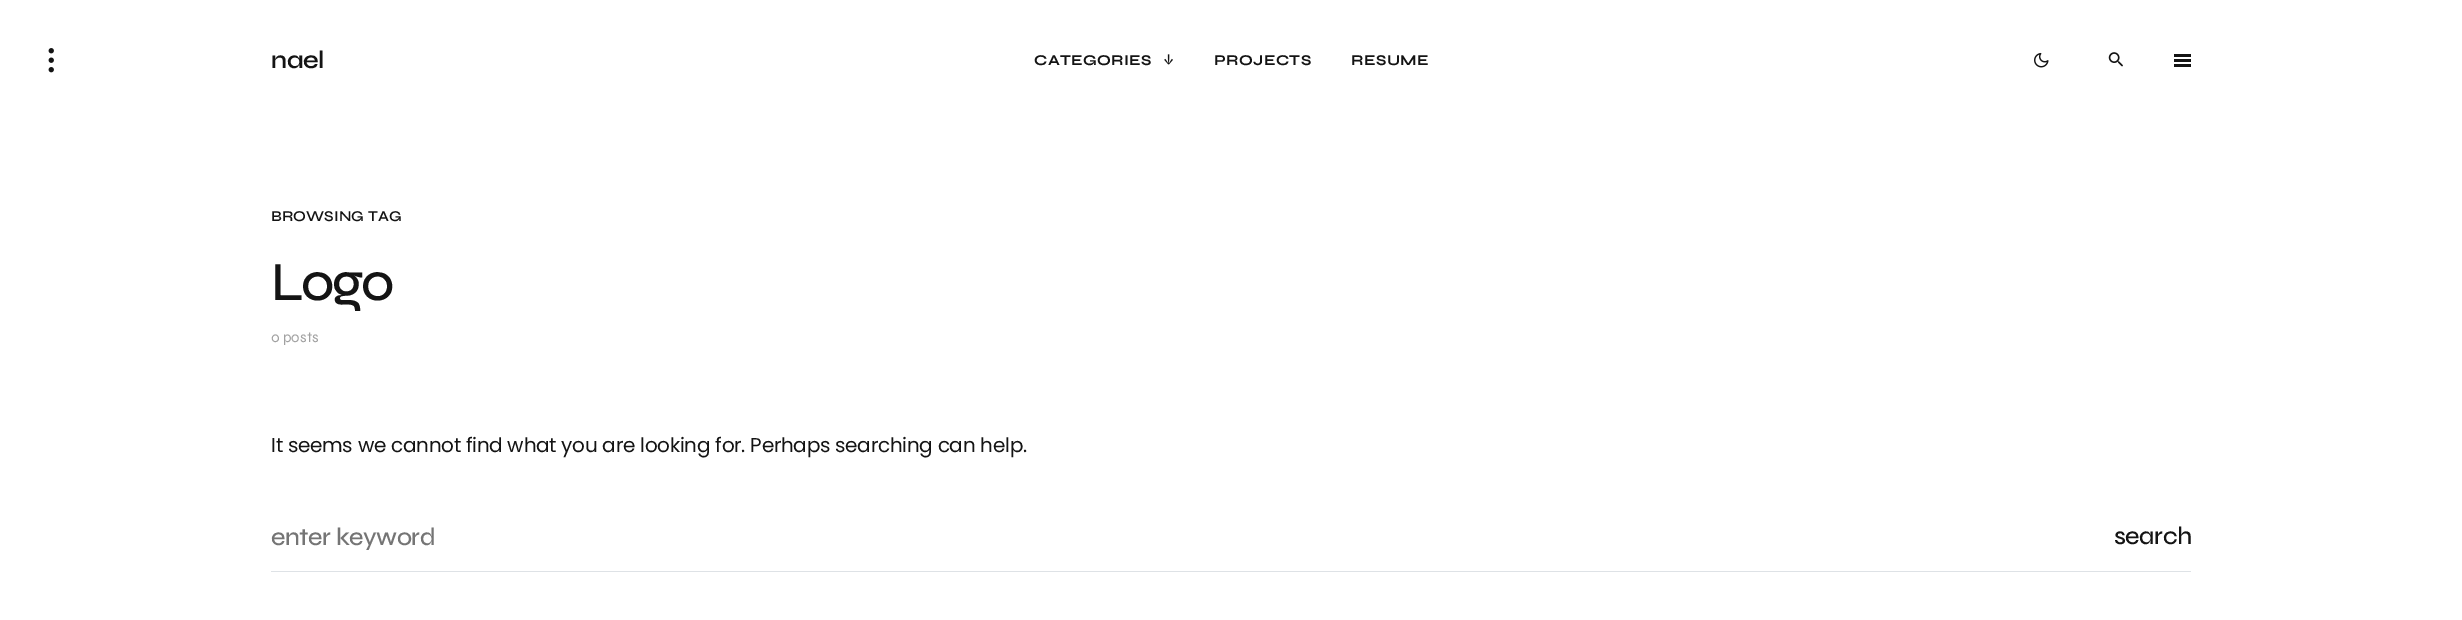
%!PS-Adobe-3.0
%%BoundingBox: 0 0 2462 620
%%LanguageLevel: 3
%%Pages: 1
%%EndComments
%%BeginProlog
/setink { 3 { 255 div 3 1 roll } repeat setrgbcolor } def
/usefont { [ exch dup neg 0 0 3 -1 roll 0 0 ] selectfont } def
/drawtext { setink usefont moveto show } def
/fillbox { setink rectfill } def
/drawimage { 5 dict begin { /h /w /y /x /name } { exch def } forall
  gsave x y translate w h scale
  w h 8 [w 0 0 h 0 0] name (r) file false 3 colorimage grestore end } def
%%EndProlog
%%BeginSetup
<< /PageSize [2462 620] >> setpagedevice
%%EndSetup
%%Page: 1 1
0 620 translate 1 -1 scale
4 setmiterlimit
0 0 2462 620 255 255 255 fillbox
(assets/img1.rgb) 48 48 6 25 drawimage
/Syne-SemiBold 25 usefont
20 20 20 setink
271 68 moveto -0.5 0 (nael) ashow
/Syne-Bold 15 usefont
1034 65 moveto 0.4 0 (CATEGORIES) ashow
(assets/img2.rgb) 1164 54 9 11 drawimage
1214 65 moveto 0.4 0 (PROJECTS) ashow
1351 65 moveto 0.4 0 (RESUME) ashow
(assets/img3.rgb) 2034 52 15 16 drawimage
(assets/img4.rgb) 2108 52 15 15 drawimage
2174 54 17 3 20 20 20 fillbox
2174 59 17 3 20 20 20 fillbox
2174 64 17 3 20 20 20 fillbox
/Syne-SemiBold 15 usefont
271 221 moveto 0.1 0 (BROWSING TAG) ashow
/Syne-Medium 55 usefont
271 300 moveto -3 0 (Logo) ashow
(0 posts) 271 342 /Syne-Regular 15 161 161 161 drawtext
/Poppins-Regular 20 usefont
20 20 20 setink
271 452 moveto -0.28 0 (It seems we cannot find what you are looking for. Perhaps searching can help.) ashow
271 571 1920 1 222 226 230 fillbox
/Syne-Medium 25 usefont
117 117 117 setink
271 545 moveto -0.5 0 (enter keyword) ashow
20 20 20 setink
2114 544 moveto -0.5 0 (search) ashow
showpage
%%EOF
